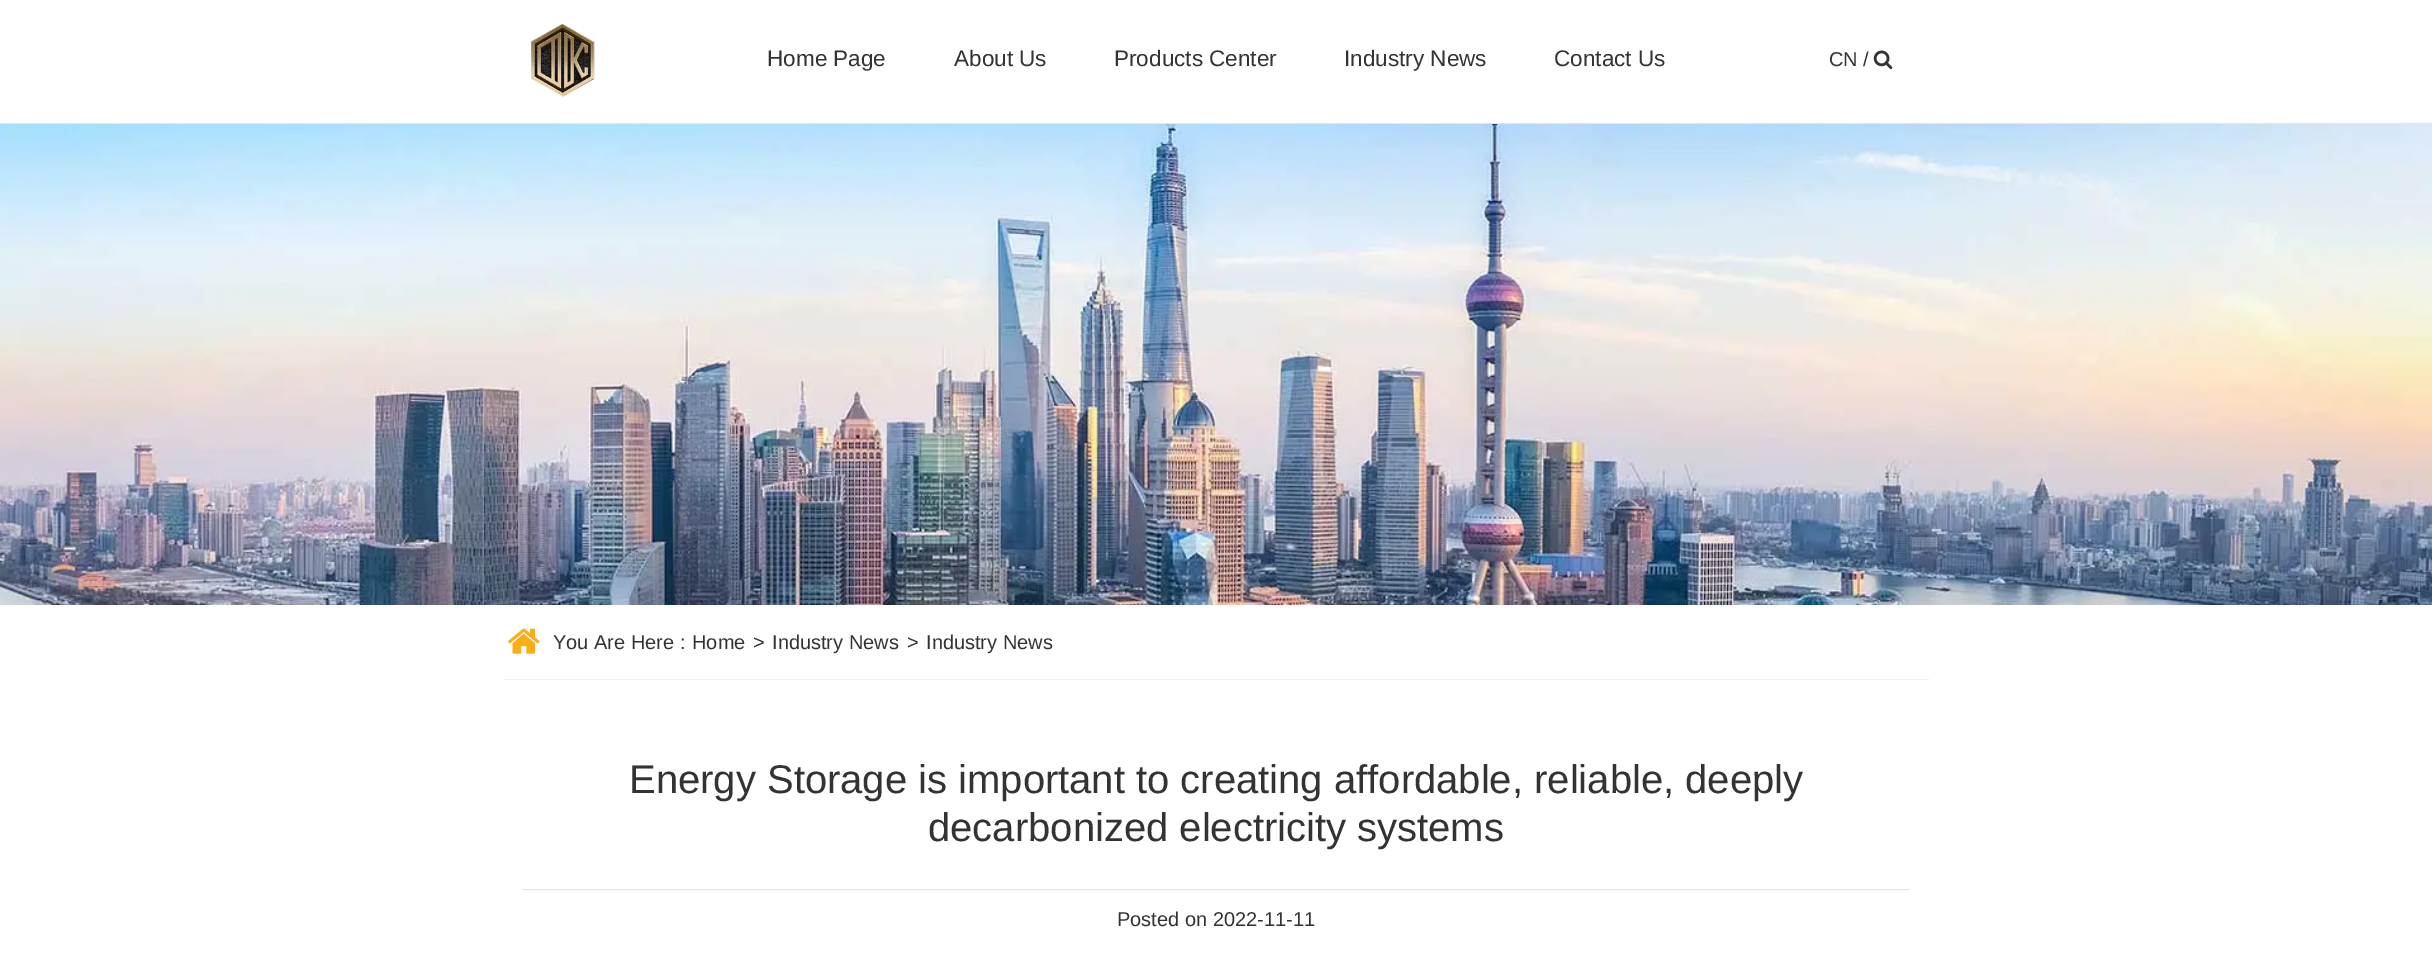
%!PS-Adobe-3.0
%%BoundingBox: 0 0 2432 963
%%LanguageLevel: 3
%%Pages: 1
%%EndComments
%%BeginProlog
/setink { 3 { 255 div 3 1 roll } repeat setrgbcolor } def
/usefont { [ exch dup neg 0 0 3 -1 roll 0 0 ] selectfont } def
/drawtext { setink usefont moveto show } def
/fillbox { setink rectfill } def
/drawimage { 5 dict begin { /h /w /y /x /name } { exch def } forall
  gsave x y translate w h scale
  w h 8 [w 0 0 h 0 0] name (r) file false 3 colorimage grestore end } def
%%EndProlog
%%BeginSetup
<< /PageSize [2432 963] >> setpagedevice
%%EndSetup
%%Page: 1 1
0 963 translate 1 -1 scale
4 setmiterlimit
0 0 2432 963 255 255 255 fillbox
0 123 2432 1 229 229 229 fillbox
(assets/img1.rgb) 531 24 64 73 drawimage
(Home Page) 767 66 /LiberationSans-Regular 22.5 51 51 51 drawtext
(About Us) 954 66 /LiberationSans-Regular 22.5 51 51 51 drawtext
(Products Center) 1114 66 /LiberationSans-Regular 22.5 51 51 51 drawtext
(Industry News) 1344 66 /LiberationSans-Regular 22.5 51 51 51 drawtext
(Contact Us) 1554 66 /LiberationSans-Regular 22.5 51 51 51 drawtext
(CN /) 1829 66 /LiberationSans-Regular 20 51 51 51 drawtext
(assets/img2.rgb) 1873 50 20 20 drawimage
(assets/img3.rgb) 0 124 2432 481 drawimage
504 679 1425 1 238 238 238 fillbox
(assets/img4.rgb) 508 628 32 26 drawimage
(You Are Here :) 553 649 /LiberationSans-Regular 20 51 51 51 drawtext
(Home) 692 649 /LiberationSans-Regular 20 51 51 51 drawtext
(>) 753 649 /LiberationSans-Regular 20 51 51 51 drawtext
(Industry News) 772 649 /LiberationSans-Regular 20 51 51 51 drawtext
(>) 907 649 /LiberationSans-Regular 20 51 51 51 drawtext
(Industry News) 926 649 /LiberationSans-Regular 20 51 51 51 drawtext
523 889 1387 1 227 227 226 fillbox
(Energy Storage is important to creating affordable, reliable, deeply) 629 793 /LiberationSans-Regular 40 51 51 51 drawtext
(decarbonized electricity systems) 928 841 /LiberationSans-Regular 40 51 51 51 drawtext
(Posted on 2022-11-11) 1117 926 /LiberationSans-Regular 20 51 51 51 drawtext
showpage
%%EOF
